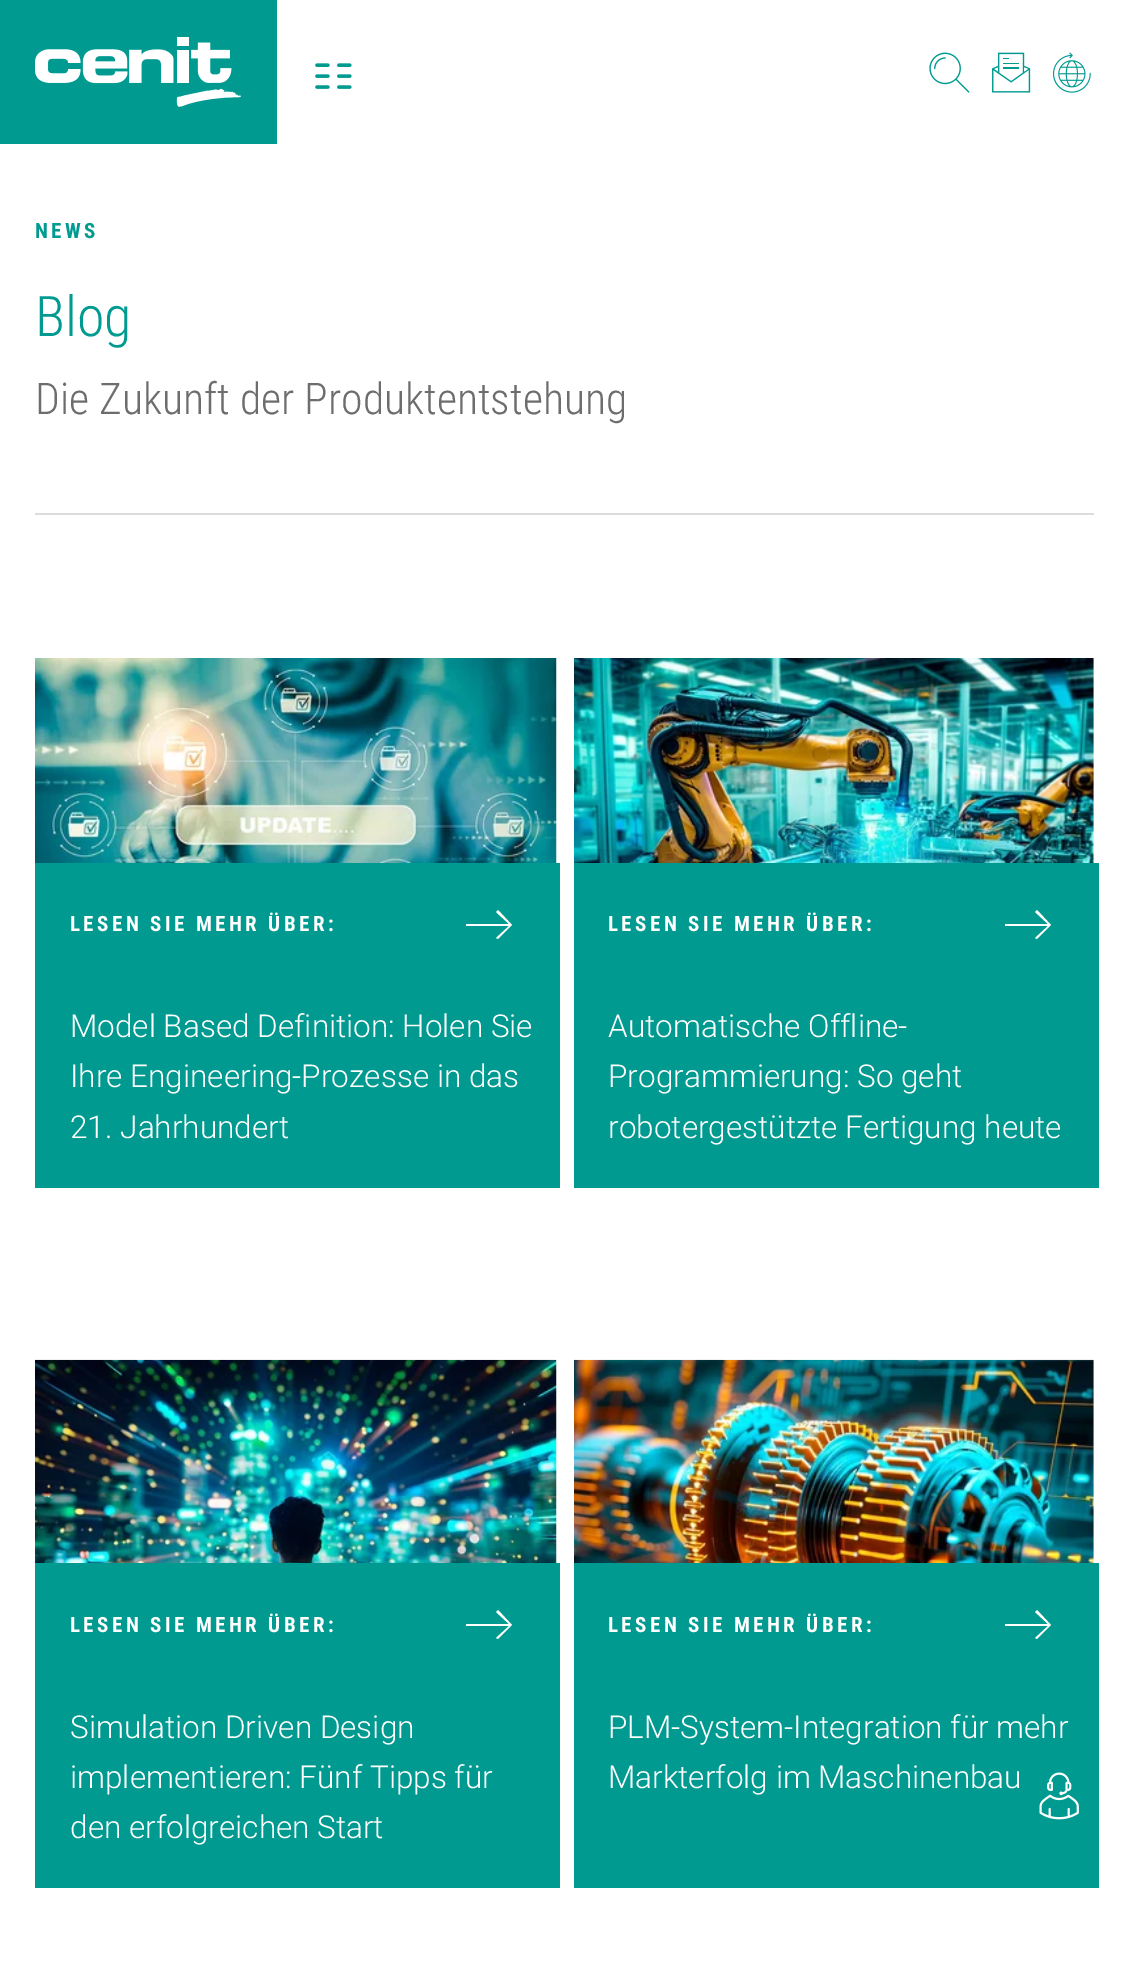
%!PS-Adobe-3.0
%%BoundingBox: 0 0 1128 1969
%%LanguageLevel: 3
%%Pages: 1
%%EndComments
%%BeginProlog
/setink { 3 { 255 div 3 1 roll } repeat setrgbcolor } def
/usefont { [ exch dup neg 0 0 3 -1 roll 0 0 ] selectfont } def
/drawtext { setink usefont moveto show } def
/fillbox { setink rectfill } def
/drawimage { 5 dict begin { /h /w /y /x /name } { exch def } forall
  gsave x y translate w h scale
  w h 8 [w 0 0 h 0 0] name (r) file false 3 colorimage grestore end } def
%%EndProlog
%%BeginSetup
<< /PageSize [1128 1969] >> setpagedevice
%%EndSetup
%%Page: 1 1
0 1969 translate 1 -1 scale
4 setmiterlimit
0 0 1128 1969 255 255 255 fillbox
0 0 277 144 0 154 144 fillbox
(assets/img1.rgb) 35 37 206 70 drawimage
(assets/img2.rgb) 315 63 37 26 drawimage
(assets/img3.rgb) 929 52 41 41 drawimage
(assets/img4.rgb) 992 52 39 41 drawimage
(assets/img5.rgb) 1053 52 38 41 drawimage
/RobotoCondensed-Bold 21 usefont
35 238 moveto 3.4 0 (NEWS) ashow
(Blog) 35 336 /RobotoCondensed-Light 56 0 154 144 drawtext
(Die Zukunft der Produktentstehung) 35 414 /RobotoCondensed-Light 43.75 109 109 109 drawtext
35 513 1059 2 220 220 220 fillbox
(assets/img6.rgb) 35 658 522 205 drawimage
35 863 525 325 0 154 144 fillbox
/RobotoCondensed-Bold 21 usefont
255 255 255 setink
70 931 moveto 3.4 0 (LESEN SIE MEHR ÜBER:) ashow
496 938 moveto 498 939 lineto 512 925 lineto 498 910 lineto 496 912 lineto 509 924 lineto 466 924 lineto 466 926 lineto 509 926 lineto closepath fill
(Model Based Definition: Holen Sie) 70 1037 /Roboto-Light 31.5 255 255 255 drawtext
(Ihre Engineering-Prozesse in das) 70 1087 /Roboto-Light 31.5 255 255 255 drawtext
(21. Jahrhundert) 70 1138 /Roboto-Light 31.5 255 255 255 drawtext
(assets/img7.rgb) 574 658 520 205 drawimage
574 863 525 325 0 154 144 fillbox
/RobotoCondensed-Bold 21 usefont
255 255 255 setink
608 931 moveto 3.4 0 (LESEN SIE MEHR ÜBER:) ashow
1035 938 moveto 1037 939 lineto 1051 925 lineto 1037 910 lineto 1035 912 lineto 1048 924 lineto 1005 924 lineto 1005 926 lineto 1048 926 lineto closepath fill
(Automatische Offline-) 608 1037 /Roboto-Light 31.5 255 255 255 drawtext
(Programmierung: So geht) 608 1087 /Roboto-Light 31.5 255 255 255 drawtext
(robotergestützte Fertigung heute) 608 1138 /Roboto-Light 31.5 255 255 255 drawtext
(assets/img8.rgb) 35 1359 522 204 drawimage
35 1563 525 325 0 154 144 fillbox
/RobotoCondensed-Bold 21 usefont
255 255 255 setink
70 1632 moveto 3.4 0 (LESEN SIE MEHR ÜBER:) ashow
496 1638 moveto 498 1639 lineto 512 1625 lineto 498 1610 lineto 496 1612 lineto 509 1624 lineto 466 1624 lineto 466 1626 lineto 509 1626 lineto closepath fill
(Simulation Driven Design) 70 1738 /Roboto-Light 31.5 255 255 255 drawtext
(implementieren: Fünf Tipps für) 70 1788 /Roboto-Light 31.5 255 255 255 drawtext
(den erfolgreichen Start) 70 1838 /Roboto-Light 31.5 255 255 255 drawtext
(assets/img9.rgb) 574 1359 520 204 drawimage
574 1563 525 325 0 154 144 fillbox
/RobotoCondensed-Bold 21 usefont
255 255 255 setink
608 1632 moveto 3.4 0 (LESEN SIE MEHR ÜBER:) ashow
1035 1638 moveto 1037 1639 lineto 1051 1625 lineto 1037 1610 lineto 1035 1612 lineto 1048 1624 lineto 1005 1624 lineto 1005 1626 lineto 1048 1626 lineto closepath fill
(PLM-System-Integration für mehr) 608 1738 /Roboto-Light 31.5 255 255 255 drawtext
(Markterfolg im Maschinenbau) 608 1788 /Roboto-Light 31.5 255 255 255 drawtext
(assets/img10.rgb) 1039 1772 40 48 drawimage
showpage
%%EOF
